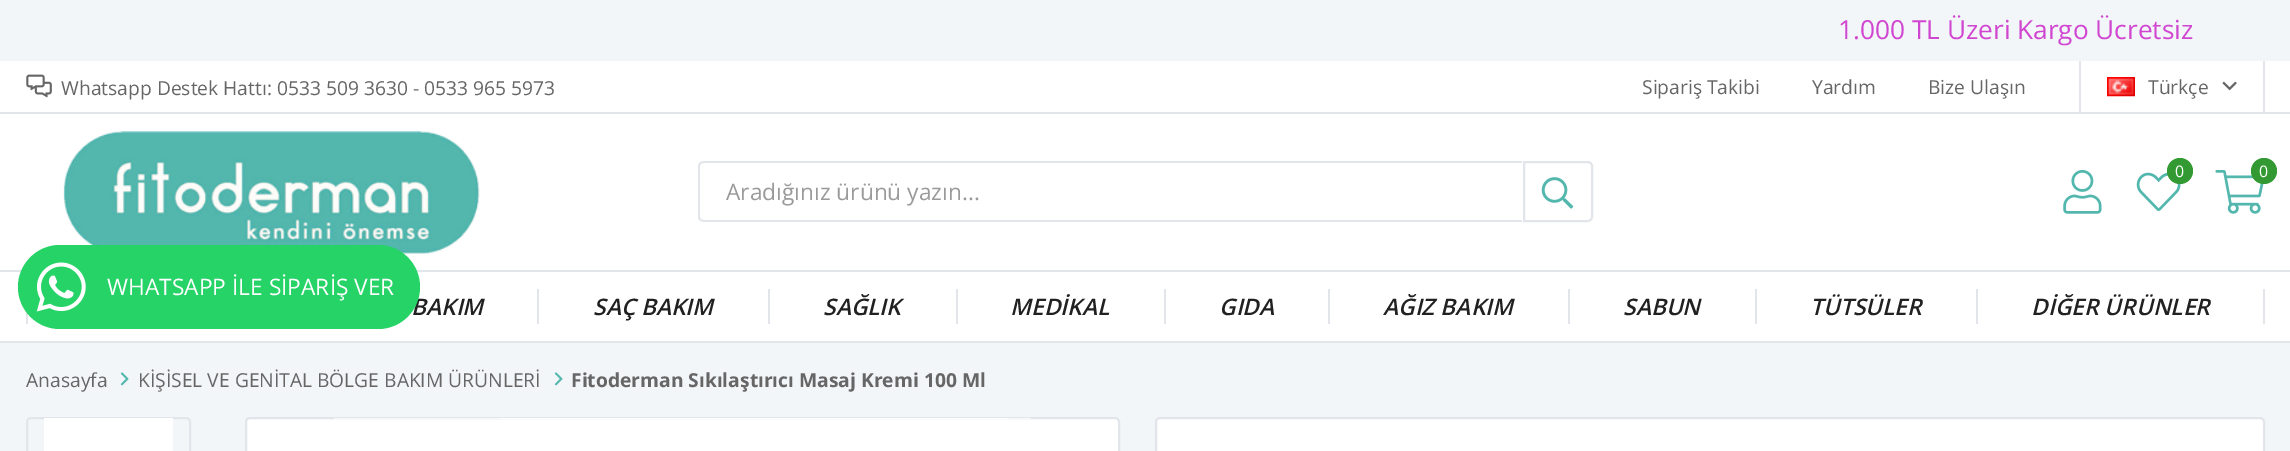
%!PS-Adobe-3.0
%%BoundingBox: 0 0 2290 451
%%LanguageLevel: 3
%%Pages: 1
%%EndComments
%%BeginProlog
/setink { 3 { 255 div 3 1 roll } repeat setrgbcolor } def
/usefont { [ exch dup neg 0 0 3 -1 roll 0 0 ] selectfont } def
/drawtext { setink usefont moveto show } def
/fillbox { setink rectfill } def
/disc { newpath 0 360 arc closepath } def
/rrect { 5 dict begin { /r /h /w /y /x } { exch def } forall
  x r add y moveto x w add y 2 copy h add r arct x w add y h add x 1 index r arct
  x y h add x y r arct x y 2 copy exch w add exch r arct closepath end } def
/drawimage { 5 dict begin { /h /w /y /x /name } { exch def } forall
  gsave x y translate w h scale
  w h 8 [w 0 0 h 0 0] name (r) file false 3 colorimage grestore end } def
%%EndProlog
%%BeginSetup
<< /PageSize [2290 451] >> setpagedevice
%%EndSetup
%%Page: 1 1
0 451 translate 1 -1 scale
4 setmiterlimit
0 0 2290 451 243 246 249 fillbox
(1.000 TL Üzeri Kargo Ücretsiz) 1838 39 /OpenSans-Regular 26.25 209 70 208 drawtext
0 61 2290 280 255 255 255 fillbox
0 112 2290 2 226 230 235 fillbox
(assets/img1.rgb) 26 74 26 24 drawimage
(Whatsapp Destek Hattı: 0533 509 3630 - 0533 965 5973) 61 95 /OpenSans-Regular 19.25 102 102 102 drawtext
(Sipariş Takibi) 1642 94 /OpenSans-Regular 19.25 102 102 102 drawtext
(Yardım) 1812 94 /OpenSans-Regular 19.25 102 102 102 drawtext
(Bize Ulaşın) 1928 94 /OpenSans-Regular 19.25 102 102 102 drawtext
2263 61 2 53 226 230 235 fillbox
2079 61 2 53 226 230 235 fillbox
(assets/img2.rgb) 2107 77 28 20 drawimage
(Türkçe) 2148 94 /OpenSans-Regular 19.25 102 102 102 drawtext
(assets/img3.rgb) 2222 81 15 10 drawimage
0 270 2290 2 226 230 235 fillbox
(assets/img4.rgb) 63 131 417 123 drawimage
(assets/img5.rgb) 2063 170 39 44 drawimage
(assets/img6.rgb) 2136 172 45 39 drawimage
51 153 51 setink
2180 171 13 disc fill
(0) 2175 177 /OpenSans-Regular 16 255 255 255 drawtext
(assets/img7.rgb) 2215 170 49 44 drawimage
51 153 51 setink
2264 171 13 disc fill
(0) 2259 177 /OpenSans-Regular 16 255 255 255 drawtext
226 230 235 setink
704 161 moveto 1522 161 lineto 1522 222 lineto 704 222 lineto 701 222 698 220 698 217 curveto 698 166 lineto 698 163 701 161 704 161 curveto closepath 704 163 moveto 1522 163 lineto 1522 220 lineto 704 220 lineto 702 220 700 219 700 217 curveto 700 166 lineto 700 164 702 163 704 163 curveto closepath eofill
(Aradığınız ürünü yazın...) 726 200 /OpenSans-Regular 22.75 154 154 154 drawtext
226 230 235 setink
2 setlinewidth
1524 162 moveto 1588 162 lineto 1590 162 1592 164 1592 166 curveto 1592 217 lineto 1592 219 1590 221 1588 221 curveto 1524 221 lineto closepath stroke
(assets/img8.rgb) 1541 177 33 32 drawimage
0 341 2290 2 226 230 235 fillbox
(BAKIM) 411 315 /OpenSans-SemiBoldItalic 22.75 33 33 33 drawtext
537 289 2 35 226 230 235 fillbox
(SAÇ BAKIM) 593 315 /OpenSans-SemiBoldItalic 22.75 33 33 33 drawtext
768 289 2 35 226 230 235 fillbox
(SAĞLIK) 823 315 /OpenSans-SemiBoldItalic 22.75 33 33 33 drawtext
956 289 2 35 226 230 235 fillbox
(MEDİKAL) 1010 315 /OpenSans-SemiBoldItalic 22.75 33 33 33 drawtext
1164 289 2 35 226 230 235 fillbox
(GIDA) 1219 315 /OpenSans-SemiBoldItalic 22.75 33 33 33 drawtext
1328 289 2 35 226 230 235 fillbox
(AĞIZ BAKIM) 1383 315 /OpenSans-SemiBoldItalic 22.75 33 33 33 drawtext
1568 289 2 35 226 230 235 fillbox
(SABUN) 1623 315 /OpenSans-SemiBoldItalic 22.75 33 33 33 drawtext
1755 289 2 35 226 230 235 fillbox
(TÜTSÜLER) 1810 315 /OpenSans-SemiBoldItalic 22.75 33 33 33 drawtext
1976 289 2 35 226 230 235 fillbox
(DİĞER ÜRÜNLER) 2031 315 /OpenSans-SemiBoldItalic 22.75 33 33 33 drawtext
2263 289 2 35 226 230 235 fillbox
26 311 2 13 226 230 235 fillbox
37 211 102 setink
18 245 402 84 42 rrect fill
(assets/img9.rgb) 36 262 50 50 drawimage
(WHATSAPP İLE SİPARİŞ VER) 107 295 /OpenSans-Regular 22.75 255 255 255 drawtext
(Anasayfa) 26 387 /OpenSans-Regular 19.25 102 102 102 drawtext
(assets/img10.rgb) 120 372 9 14 drawimage
(KİŞİSEL VE GENİTAL BÖLGE BAKIM ÜRÜNLERİ) 138 387 /OpenSans-Regular 19.25 102 102 102 drawtext
(assets/img10.rgb) 554 372 9 14 drawimage
(Fitoderman Sıkılaştırıcı Masaj Kremi 100 Ml) 571 387 /OpenSans-Bold 19.25 102 102 102 drawtext
226 230 235 setink
27 418 163 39 4 rrect stroke
44 418 129 33 255 255 255 fillbox
246 418 873 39 4 rrect gsave fill grestore
226 230 235 setink
stroke
(assets/img11.rgb) 334 418 697 1 drawimage
255 255 255 setink
1156 418 1108 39 4 rrect gsave fill grestore
226 230 235 setink
stroke
showpage
%%EOF
